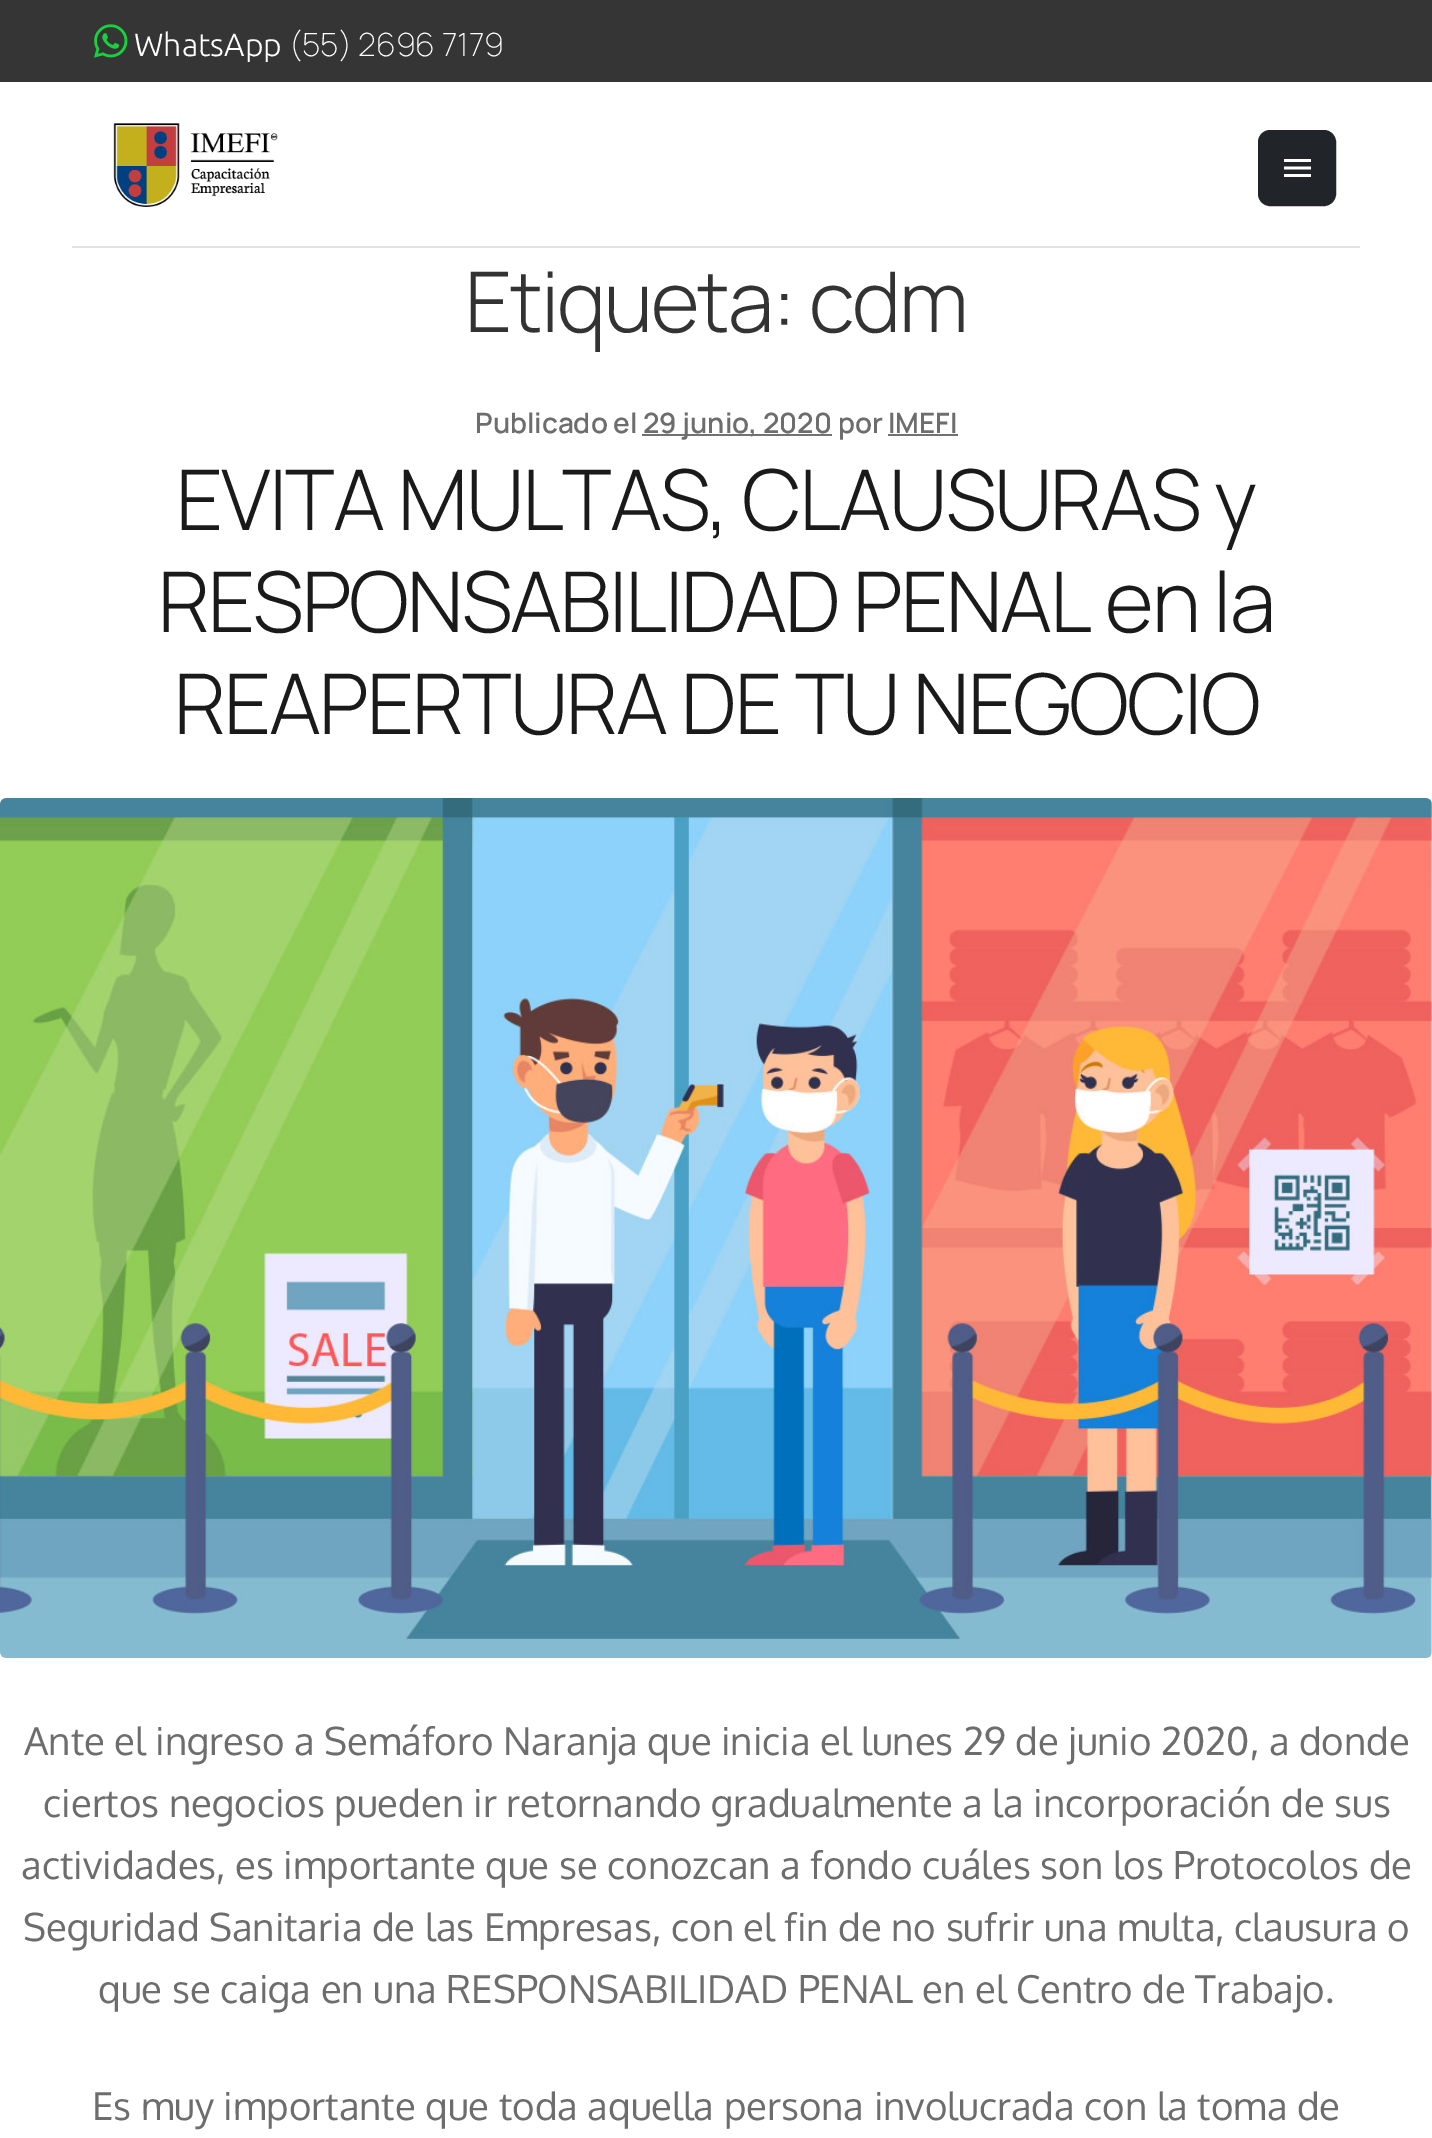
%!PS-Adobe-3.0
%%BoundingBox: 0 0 1432 2138
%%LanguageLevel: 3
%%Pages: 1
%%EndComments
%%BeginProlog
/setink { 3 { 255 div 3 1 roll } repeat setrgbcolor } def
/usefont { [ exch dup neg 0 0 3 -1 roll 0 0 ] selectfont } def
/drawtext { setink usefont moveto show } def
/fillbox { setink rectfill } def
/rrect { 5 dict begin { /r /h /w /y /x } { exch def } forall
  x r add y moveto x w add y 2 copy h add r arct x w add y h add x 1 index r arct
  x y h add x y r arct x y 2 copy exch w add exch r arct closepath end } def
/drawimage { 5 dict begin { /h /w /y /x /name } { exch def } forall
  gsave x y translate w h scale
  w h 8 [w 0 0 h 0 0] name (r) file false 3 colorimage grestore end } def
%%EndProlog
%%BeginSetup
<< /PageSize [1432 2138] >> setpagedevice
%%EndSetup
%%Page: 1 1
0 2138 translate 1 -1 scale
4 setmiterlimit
0 0 1432 2138 255 255 255 fillbox
0 0 1432 82 53 53 53 fillbox
(assets/img1.rgb) 94 24 34 34 drawimage
(WhatsApp) 134 56 /Ubuntu-Light 32 255 255 255 drawtext
(\(55\) 2696 7179) 289 56 /Manrope-ExtraLight 32 255 255 255 drawtext
72 246 1288 2 226 226 226 fillbox
(assets/img2.rgb) 113 123 165 84 drawimage
33 37 41 setink
1259 131 76 74 11 rrect gsave fill grestore
2 setlinewidth
stroke
(assets/img3.rgb) 1284 159 27 18 drawimage
/Manrope-Light 83.75 usefont
51 51 51 setink
465 332 moveto -2 0 (Etiqueta: cdm) ashow
(Publicado el) 475 433 /Manrope-SemiBold 28 109 109 109 drawtext
642 434 190 2 114 114 114 fillbox
(29 junio, 2020) 643 433 /Manrope-SemiBold 28 109 109 109 drawtext
(por) 838 433 /Manrope-SemiBold 28 109 109 109 drawtext
888 434 70 2 114 114 114 fillbox
(IMEFI) 888 433 /Manrope-SemiBold 28 109 109 109 drawtext
/Manrope-Light 83.75 usefont
26 26 26 setink
176 530 moveto -2 0 (EVITA MULTAS, CLAUSURAS y) ashow
158 632 moveto -2 0 (RESPONSABILIDAD PENAL en la) ashow
174 734 moveto -2 0 (REAPERTURA DE TU NEGOCIO) ashow
(assets/img4.rgb) 0 798 1432 860 drawimage
(Ante el ingreso a Semáforo Naranja que inicia el lunes 29 de junio 2020, a donde) 24 1755 /Oxygen-Regular 38.4 109 109 109 drawtext
(ciertos negocios pueden ir retornando gradualmente a la incorporación de sus) 43 1817 /Oxygen-Regular 38.4 109 109 109 drawtext
(actividades, es importante que se conozcan a fondo cuáles son los Protocolos de) 21 1879 /Oxygen-Regular 38.4 109 109 109 drawtext
(Seguridad Sanitaria de las Empresas, con el fin de no sufrir una multa, clausura o) 23 1941 /Oxygen-Regular 38.4 109 109 109 drawtext
(que se caiga en una RESPONSABILIDAD PENAL en el Centro de Trabajo.) 98 2003 /Oxygen-Regular 38.4 109 109 109 drawtext
(Es muy importante que toda aquella persona involucrada con la toma de) 92 2120 /Oxygen-Regular 38.4 109 109 109 drawtext
showpage
%%EOF
